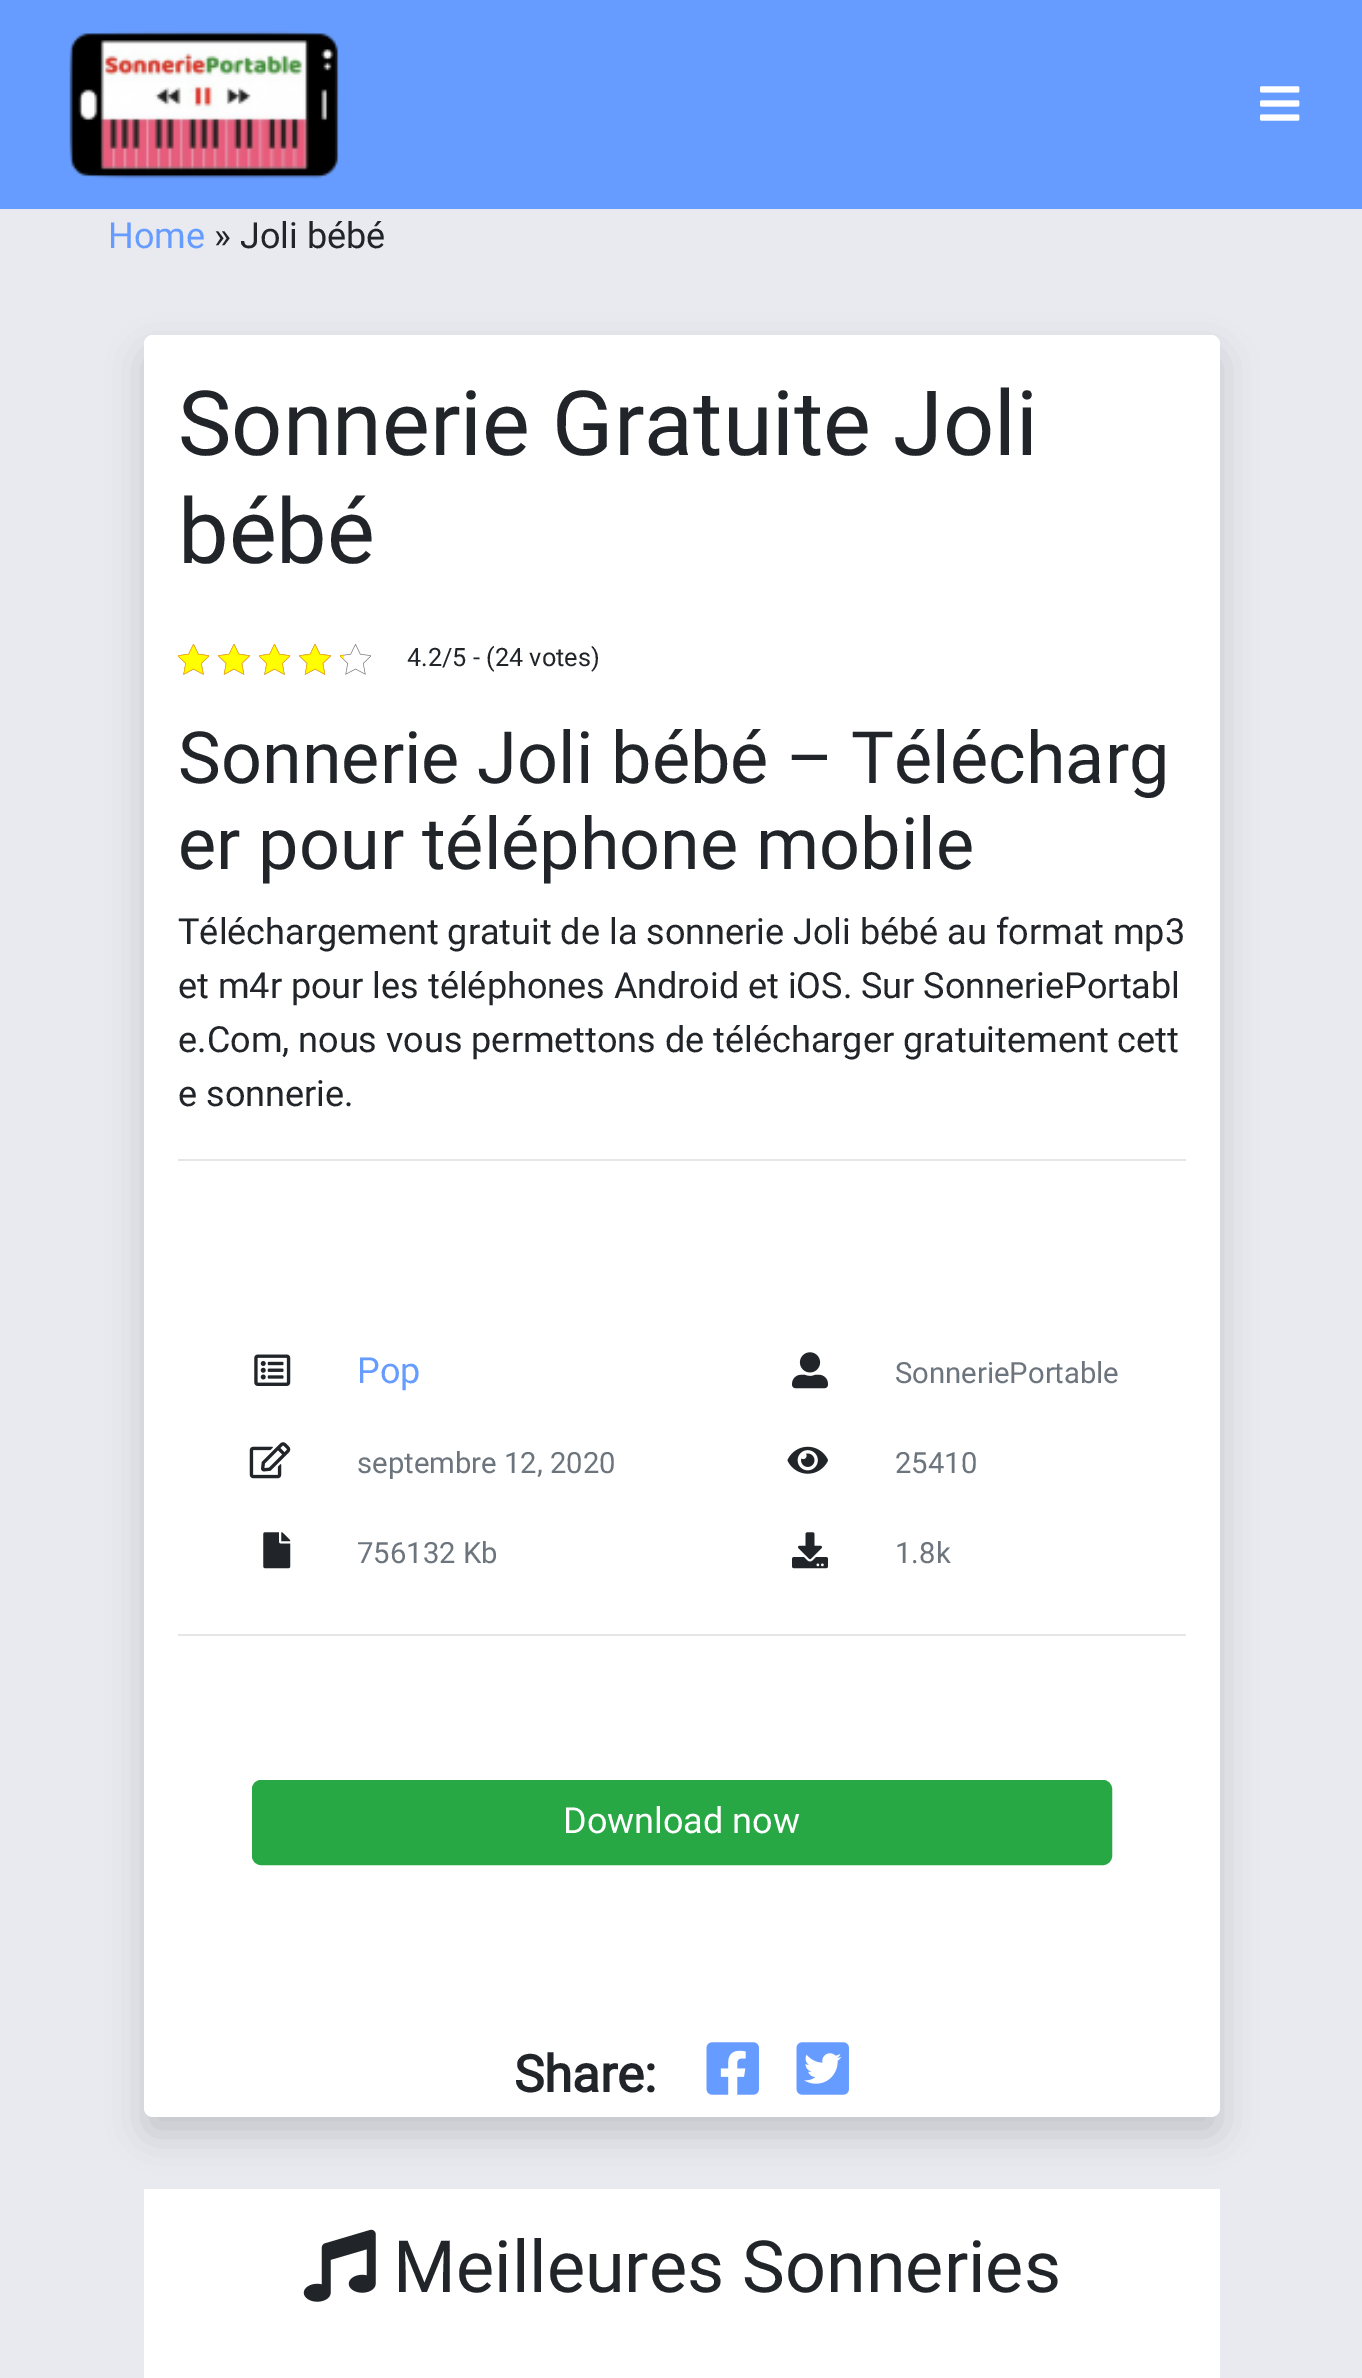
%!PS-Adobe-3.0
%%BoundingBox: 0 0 1362 2378
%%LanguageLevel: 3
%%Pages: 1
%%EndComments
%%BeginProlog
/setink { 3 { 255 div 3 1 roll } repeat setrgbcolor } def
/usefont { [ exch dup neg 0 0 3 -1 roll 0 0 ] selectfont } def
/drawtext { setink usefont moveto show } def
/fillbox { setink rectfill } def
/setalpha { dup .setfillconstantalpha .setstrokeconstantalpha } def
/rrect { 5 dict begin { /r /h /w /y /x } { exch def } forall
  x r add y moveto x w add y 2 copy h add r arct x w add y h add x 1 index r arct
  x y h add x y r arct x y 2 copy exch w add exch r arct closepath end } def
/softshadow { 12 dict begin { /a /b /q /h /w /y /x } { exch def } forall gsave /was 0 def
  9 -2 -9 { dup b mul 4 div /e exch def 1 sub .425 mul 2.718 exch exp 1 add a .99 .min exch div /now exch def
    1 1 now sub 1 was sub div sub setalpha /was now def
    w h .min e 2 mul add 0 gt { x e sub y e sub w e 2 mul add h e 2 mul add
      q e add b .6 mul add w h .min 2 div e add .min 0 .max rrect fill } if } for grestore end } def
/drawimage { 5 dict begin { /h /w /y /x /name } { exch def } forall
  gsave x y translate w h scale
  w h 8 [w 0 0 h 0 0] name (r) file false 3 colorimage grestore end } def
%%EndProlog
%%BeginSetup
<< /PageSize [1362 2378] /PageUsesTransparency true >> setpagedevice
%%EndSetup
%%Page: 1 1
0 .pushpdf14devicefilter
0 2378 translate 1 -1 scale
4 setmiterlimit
0 0 1362 2378 232 234 239 fillbox
0 0 1362 209 102 156 255 fillbox
(assets/img1.rgb) 69 31 271 148 drawimage
(assets/img2.rgb) 1260 86 40 35 drawimage
(Home) 108 248 /Roboto-Regular 36 102 156 255 drawtext
(» Joli bébé) 214 248 /Roboto-Regular 36 33 37 41 drawtext
0 0 0 setink
144 353 1076 1782 9 18 0.15 softshadow
255 255 255 setink
144 335 1076 1782 9 rrect fill
(Sonnerie Gratuite Joli) 178 455 /Roboto-Regular 90 33 37 41 drawtext
(bébé) 178 563 /Roboto-Regular 90 33 37 41 drawtext
(assets/img3.rgb) 178 644 31 31 drawimage
(assets/img4.rgb) 218 644 32 31 drawimage
(assets/img3.rgb) 259 644 31 31 drawimage
(assets/img4.rgb) 299 644 32 31 drawimage
(assets/img3.rgb) 340 644 31 31 drawimage
(assets/img5.rgb) 178 644 31 31 drawimage
(assets/img6.rgb) 218 644 32 31 drawimage
(assets/img5.rgb) 259 644 31 31 drawimage
(assets/img6.rgb) 299 644 32 31 drawimage
(assets/img7.rgb) 340 654 4 7 drawimage
(4.2/5 - \(24 votes\)) 407 666 /Roboto-Regular 25.25 33 37 41 drawtext
(Sonnerie Joli bébé – Télécharg) 178 783 /Roboto-Regular 72 33 37 41 drawtext
(er pour téléphone mobile) 178 869 /Roboto-Regular 72 33 37 41 drawtext
(Téléchargement gratuit de la sonnerie Joli bébé au format mp3) 178 944 /Roboto-Regular 36 33 37 41 drawtext
(et m4r pour les téléphones Android et iOS. Sur SonneriePortabl) 178 998 /Roboto-Regular 36 33 37 41 drawtext
(e.Com, nous vous permettons de télécharger gratuitement cett) 178 1052 /Roboto-Regular 36 33 37 41 drawtext
(e sonnerie.) 178 1106 /Roboto-Regular 36 33 37 41 drawtext
178 1159 1008 2 230 230 230 fillbox
(assets/img8.rgb) 254 1354 37 32 drawimage
(Pop) 357 1383 /Roboto-Regular 36 102 156 255 drawtext
(assets/img9.rgb) 792 1352 36 37 drawimage
(SonneriePortable) 895 1383 /Roboto-Regular 29.25 108 117 125 drawtext
(assets/img10.rgb) 249 1442 42 37 drawimage
(septembre 12, 2020) 357 1473 /Roboto-Regular 29.25 108 117 125 drawtext
(assets/img11.rgb) 787 1446 41 28 drawimage
(25410) 895 1473 /Roboto-Regular 29.25 108 117 125 drawtext
(assets/img12.rgb) 263 1532 28 37 drawimage
(756132 Kb) 357 1563 /Roboto-Regular 29.25 108 117 125 drawtext
(assets/img13.rgb) 792 1532 36 37 drawimage
(1.8k) 895 1563 /Roboto-Regular 29.25 108 117 125 drawtext
178 1634 1008 2 230 230 230 fillbox
40 167 69 setink
253 1781 858 83 8 rrect gsave fill grestore
2 setlinewidth
stroke
(Download now) 563 1833 /Roboto-Regular 36 255 255 255 drawtext
(Share:) 514 2092 /Roboto-Bold 51 33 37 41 drawtext
(assets/img14.rgb) 706 2042 53 53 drawimage
(assets/img15.rgb) 796 2042 53 53 drawimage
144 2189 1076 189 255 255 255 fillbox
(assets/img16.rgb) 303 2229 73 73 drawimage
(Meilleures Sonneries) 393 2292 /Roboto-Regular 72 33 37 41 drawtext
.poppdf14devicefilter showpage
%%EOF
